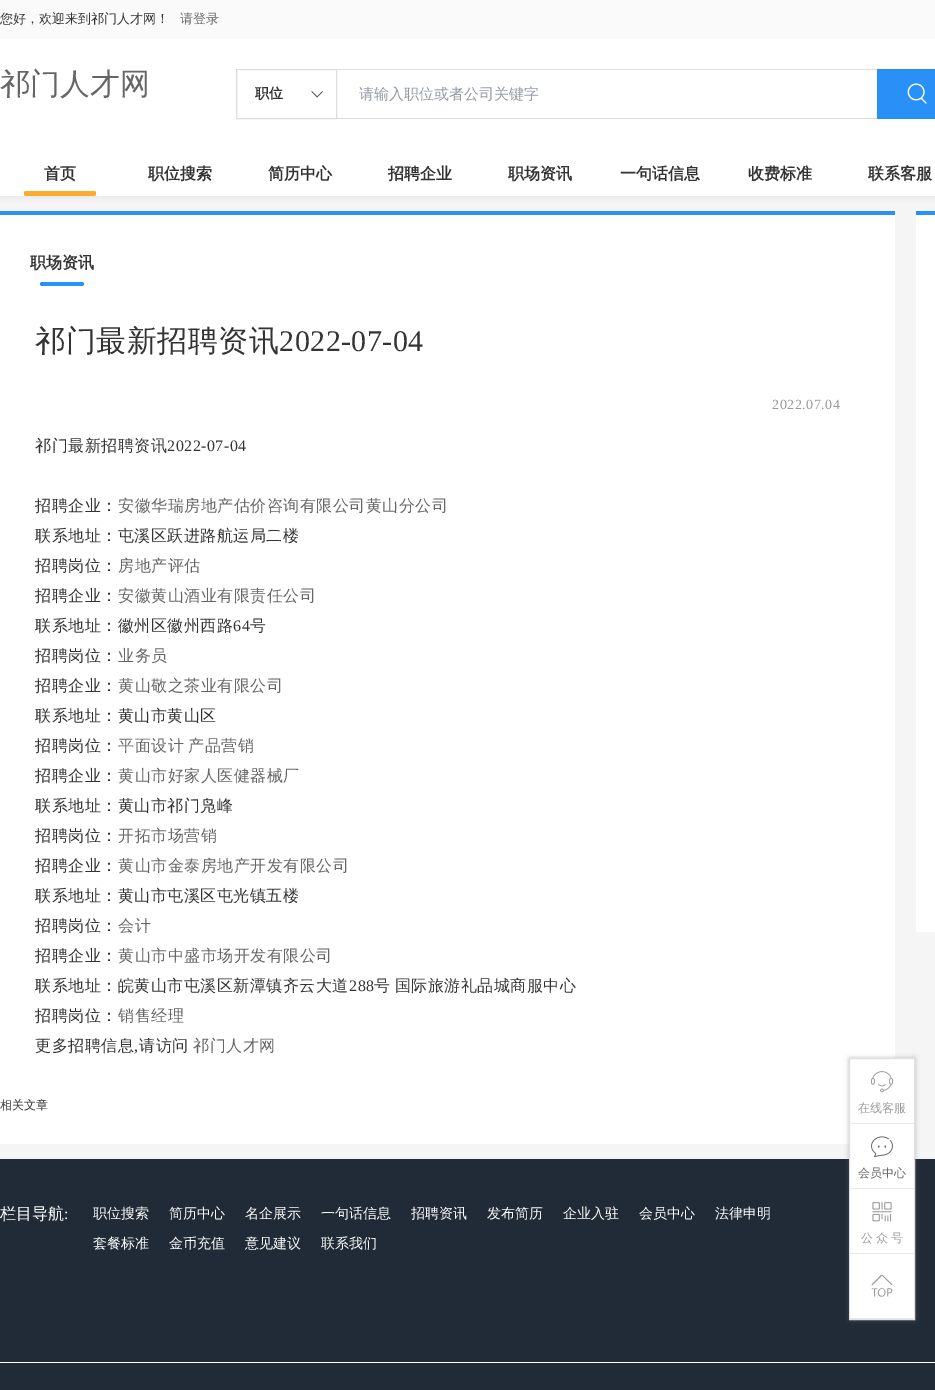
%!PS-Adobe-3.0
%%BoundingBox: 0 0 935 1390
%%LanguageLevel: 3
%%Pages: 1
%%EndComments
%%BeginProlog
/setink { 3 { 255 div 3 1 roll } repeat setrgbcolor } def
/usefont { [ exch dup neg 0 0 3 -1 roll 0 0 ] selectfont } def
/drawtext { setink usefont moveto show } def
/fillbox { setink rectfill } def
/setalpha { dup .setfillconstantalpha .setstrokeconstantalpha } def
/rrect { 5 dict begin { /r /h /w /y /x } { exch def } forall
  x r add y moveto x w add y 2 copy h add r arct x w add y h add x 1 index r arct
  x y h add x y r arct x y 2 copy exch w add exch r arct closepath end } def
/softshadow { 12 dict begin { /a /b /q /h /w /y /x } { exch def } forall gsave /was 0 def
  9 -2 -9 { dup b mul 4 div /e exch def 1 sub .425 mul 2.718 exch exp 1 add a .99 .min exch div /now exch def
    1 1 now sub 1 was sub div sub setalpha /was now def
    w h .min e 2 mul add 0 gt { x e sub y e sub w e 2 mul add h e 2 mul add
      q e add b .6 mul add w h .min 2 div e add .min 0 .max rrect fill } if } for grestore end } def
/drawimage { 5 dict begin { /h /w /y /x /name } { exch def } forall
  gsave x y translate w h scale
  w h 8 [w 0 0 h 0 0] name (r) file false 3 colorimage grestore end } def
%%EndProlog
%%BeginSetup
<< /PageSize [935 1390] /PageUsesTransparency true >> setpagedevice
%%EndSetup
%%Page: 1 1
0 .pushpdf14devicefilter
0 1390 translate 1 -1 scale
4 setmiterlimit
0 0 935 1390 245 245 245 fillbox
221 221 221 setink
0 0 935 196 0 4 1 softshadow
0 39 935 157 255 255 255 fillbox
0 0 935 39 250 250 250 fillbox
(您好，欢迎来到祁门人才网！) 0 23 /WenQuanYiZenHei-Medium 13 51 51 51 drawtext
(请登录) 180 23 /WenQuanYiZenHei-Medium 13 102 102 102 drawtext
(祁门人才网) 0 94 /WenQuanYiZenHei-Medium 30 102 102 102 drawtext
221 221 221 setink
236.5 69.5 100 49 rectstroke
(职位) 255 98 /WenQuanYiZenHei-Bold 14 51 51 51 drawtext
(assets/img1.rgb) 311 91 12 7 drawimage
337 69 540 1 221 221 221 fillbox
337 118 540 1 221 221 221 fillbox
(请输入职位或者公司关键字) 359 99 /WenQuanYiZenHei-Medium 15 147 153 165 drawtext
877 69 58 50 41 144 247 fillbox
(assets/img2.rgb) 907 83 20 21 drawimage
(首页) 44 179 /WenQuanYiZenHei-Bold 16 51 51 51 drawtext
251 171 45 setink
24 191 72 5 2 rrect fill
(职位搜索) 148 179 /WenQuanYiZenHei-Bold 16 51 51 51 drawtext
(简历中心) 268 179 /WenQuanYiZenHei-Bold 16 51 51 51 drawtext
(招聘企业) 388 179 /WenQuanYiZenHei-Bold 16 51 51 51 drawtext
(职场资讯) 508 179 /WenQuanYiZenHei-Bold 16 51 51 51 drawtext
(一句话信息) 620 179 /WenQuanYiZenHei-Bold 16 51 51 51 drawtext
(收费标准) 748 179 /WenQuanYiZenHei-Bold 16 51 51 51 drawtext
(联系客服) 868 179 /WenQuanYiZenHei-Bold 16 51 51 51 drawtext
0 215 895 881 255 255 255 fillbox
0 1096 849 48 255 255 255 fillbox
0 1159 935 231 33 43 55 fillbox
110 110 110 setink
849 1058 66 262 0 2.5 0.4 softshadow
850 1059 64 259 255 255 255 fillbox
224 225 229 setink
849.5 1058.5 65 261 rectstroke
850 1123 64 1 232 232 232 fillbox
(assets/img3.rgb) 871 1071 22 22 drawimage
(在线客服) 858 1112 /WenQuanYiZenHei-Medium 12 153 153 153 drawtext
850 1188 64 1 232 232 232 fillbox
(assets/img4.rgb) 871 1136 22 22 drawimage
(会员中心) 858 1177 /WenQuanYiZenHei-Medium 12 102 102 102 drawtext
850 1253 64 1 232 232 232 fillbox
(assets/img5.rgb) 872 1202 20 20 drawimage
(公) 861 1242 /WenQuanYiZenHei-Medium 12 153 153 153 drawtext
(众) 876 1242 /WenQuanYiZenHei-Medium 12 153 153 153 drawtext
(号) 891 1242 /WenQuanYiZenHei-Medium 12 153 153 153 drawtext
850 1318 64 1 232 232 232 fillbox
(assets/img6.rgb) 871 1274 22 23 drawimage
0 211 895 4 41 144 247 fillbox
(职场资讯) 30 268 /WenQuanYiZenHei-Bold 16 51 51 51 drawtext
41 144 247 setink
40 282 44 4 2 rrect fill
/WenQuanYiZenHei-Medium 30 usefont
51 51 51 setink
35 351 moveto 0.5 0 (祁门最新招聘资讯) ashow
/LiberationSerif-Regular 30 usefont
279 351 moveto 0.5 0 (2022-07-04) ashow
/LiberationSerif-Regular 14 usefont
153 153 153 setink
772 409 moveto 0.5 0 (2022.07.04) ashow
/WenQuanYiZenHei-Medium 16 usefont
51 51 51 setink
35 451 moveto 0.5 0 (祁门最新招聘资讯) ashow
/LiberationSerif-Regular 16 usefont
167 451 moveto 0.5 0 (2022-07-04) ashow
/WenQuanYiZenHei-Medium 16 usefont
35 511 moveto 0.5 0 (招聘企业：) ashow
102 102 102 setink
118 511 moveto 0.5 0 (安徽华瑞房地产估价咨询有限公司黄山分公司) ashow
51 51 51 setink
35 541 moveto 0.5 0 (联系地址：屯溪区跃进路航运局二楼) ashow
35 571 moveto 0.5 0 (招聘岗位：) ashow
102 102 102 setink
118 571 moveto 0.5 0 (房地产评估) ashow
51 51 51 setink
35 601 moveto 0.5 0 (招聘企业：) ashow
102 102 102 setink
118 601 moveto 0.5 0 (安徽黄山酒业有限责任公司) ashow
51 51 51 setink
35 631 moveto 0.5 0 (联系地址：徽州区徽州西路) ashow
/LiberationSerif-Regular 16 usefont
233 631 moveto 0.5 0 (64) ashow
/WenQuanYiZenHei-Medium 16 usefont
250 631 moveto 0.5 0 (号) ashow
35 661 moveto 0.5 0 (招聘岗位：) ashow
102 102 102 setink
118 661 moveto 0.5 0 (业务员) ashow
51 51 51 setink
35 691 moveto 0.5 0 (招聘企业：) ashow
102 102 102 setink
118 691 moveto 0.5 0 (黄山敬之茶业有限公司) ashow
51 51 51 setink
35 721 moveto 0.5 0 (联系地址：黄山市黄山区) ashow
35 751 moveto 0.5 0 (招聘岗位：) ashow
102 102 102 setink
118 751 moveto 0.5 0 (平面设计) ashow
188 751 moveto 0.5 0 (产品营销) ashow
51 51 51 setink
35 781 moveto 0.5 0 (招聘企业：) ashow
102 102 102 setink
118 781 moveto 0.5 0 (黄山市好家人医健器械厂) ashow
51 51 51 setink
35 811 moveto 0.5 0 (联系地址：黄山市祁门凫峰) ashow
35 841 moveto 0.5 0 (招聘岗位：) ashow
102 102 102 setink
118 841 moveto 0.5 0 (开拓市场营销) ashow
51 51 51 setink
35 871 moveto 0.5 0 (招聘企业：) ashow
102 102 102 setink
118 871 moveto 0.5 0 (黄山市金泰房地产开发有限公司) ashow
51 51 51 setink
35 901 moveto 0.5 0 (联系地址：黄山市屯溪区屯光镇五楼) ashow
35 931 moveto 0.5 0 (招聘岗位：) ashow
102 102 102 setink
118 931 moveto 0.5 0 (会计) ashow
51 51 51 setink
35 961 moveto 0.5 0 (招聘企业：) ashow
102 102 102 setink
118 961 moveto 0.5 0 (黄山市中盛市场开发有限公司) ashow
51 51 51 setink
35 991 moveto 0.5 0 (联系地址：皖黄山市屯溪区新潭镇齐云大道) ashow
/LiberationSerif-Regular 16 usefont
349 991 moveto 0.5 0 (288) ashow
/WenQuanYiZenHei-Medium 16 usefont
374 991 moveto -1 0 32 0.5 0 (号 国际旅游礼品城商服中心) awidthshow
35 1021 moveto 0.5 0 (招聘岗位：) ashow
102 102 102 setink
118 1021 moveto 0.5 0 (销售经理) ashow
51 51 51 setink
35 1051 moveto 0.5 0 (更多招聘信息) ashow
/LiberationSerif-Regular 16 usefont
134 1051 moveto 0.5 0 (,) ashow
/WenQuanYiZenHei-Medium 16 usefont
139 1051 moveto 0.5 0 (请访问) ashow
102 102 102 setink
193 1051 moveto 0.5 0 (祁门人才网) ashow
(相关文章) 0 1109 /WenQuanYiZenHei-Medium 12 51 51 51 drawtext
916 211 19 4 41 144 247 fillbox
916 215 19 717 255 255 255 fillbox
0 1362 935 1 255 255 255 fillbox
(栏目导航) 0 1219 /WenQuanYiZenHei-Medium 16 255 255 255 drawtext
(:) 64 1219 /LiberationSerif-Regular 16 255 255 255 drawtext
(职位搜索) 93 1218 /WenQuanYiZenHei-Medium 14 255 255 255 drawtext
(简历中心) 169 1218 /WenQuanYiZenHei-Medium 14 255 255 255 drawtext
(名企展示) 245 1218 /WenQuanYiZenHei-Medium 14 255 255 255 drawtext
(一句话信息) 321 1218 /WenQuanYiZenHei-Medium 14 255 255 255 drawtext
(招聘资讯) 411 1218 /WenQuanYiZenHei-Medium 14 255 255 255 drawtext
(发布简历) 487 1218 /WenQuanYiZenHei-Medium 14 255 255 255 drawtext
(企业入驻) 563 1218 /WenQuanYiZenHei-Medium 14 255 255 255 drawtext
(会员中心) 639 1218 /WenQuanYiZenHei-Medium 14 255 255 255 drawtext
(法律申明) 715 1218 /WenQuanYiZenHei-Medium 14 255 255 255 drawtext
(套餐标准) 93 1248 /WenQuanYiZenHei-Medium 14 255 255 255 drawtext
(金币充值) 169 1248 /WenQuanYiZenHei-Medium 14 255 255 255 drawtext
(意见建议) 245 1248 /WenQuanYiZenHei-Medium 14 255 255 255 drawtext
(联系我们) 321 1248 /WenQuanYiZenHei-Medium 14 255 255 255 drawtext
.poppdf14devicefilter showpage
%%EOF
